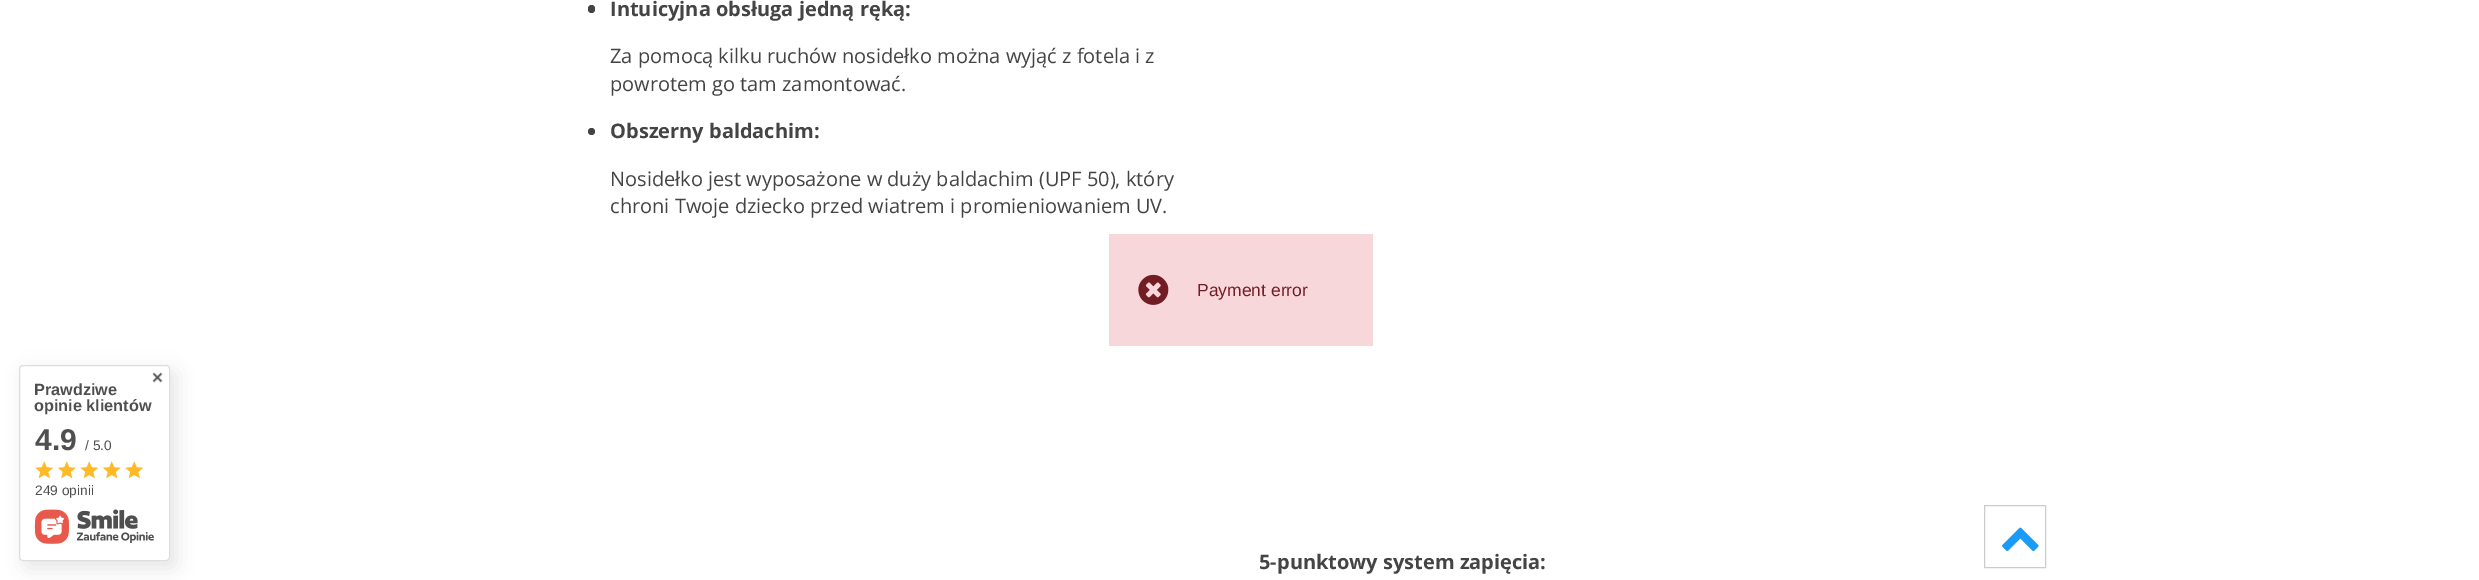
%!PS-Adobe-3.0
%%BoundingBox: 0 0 2479 580
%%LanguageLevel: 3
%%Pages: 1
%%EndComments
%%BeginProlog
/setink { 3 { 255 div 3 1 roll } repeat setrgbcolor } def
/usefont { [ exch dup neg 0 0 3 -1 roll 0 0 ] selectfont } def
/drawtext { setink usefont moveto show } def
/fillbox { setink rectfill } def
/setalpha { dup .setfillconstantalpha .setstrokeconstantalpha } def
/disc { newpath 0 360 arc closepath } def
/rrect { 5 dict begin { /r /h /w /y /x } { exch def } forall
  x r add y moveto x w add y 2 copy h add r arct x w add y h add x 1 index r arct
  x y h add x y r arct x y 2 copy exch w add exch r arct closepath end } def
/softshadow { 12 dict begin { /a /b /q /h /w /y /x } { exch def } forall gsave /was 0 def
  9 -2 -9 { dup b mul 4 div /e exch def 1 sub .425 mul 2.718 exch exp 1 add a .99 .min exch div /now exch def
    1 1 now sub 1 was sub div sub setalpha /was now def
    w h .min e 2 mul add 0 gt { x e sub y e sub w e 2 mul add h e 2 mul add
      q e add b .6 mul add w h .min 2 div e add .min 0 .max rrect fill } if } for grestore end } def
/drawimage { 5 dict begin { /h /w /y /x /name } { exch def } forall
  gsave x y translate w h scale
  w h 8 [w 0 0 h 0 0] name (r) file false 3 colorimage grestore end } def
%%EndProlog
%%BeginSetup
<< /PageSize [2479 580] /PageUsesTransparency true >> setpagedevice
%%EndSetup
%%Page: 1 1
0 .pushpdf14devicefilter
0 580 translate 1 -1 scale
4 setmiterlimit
0 0 2479 580 255 255 255 fillbox
68 68 68 setink
588 5 7 8 3.5 rrect fill
(Intuicyjna obsługa jedną ręką:) 610 16 /OpenSans-Bold 20 68 68 68 drawtext
(Za pomocą kilku ruchów nosidełko można wyjąć z fotela i z) 610 63 /OpenSans-Regular 20 68 68 68 drawtext
(powrotem go tam zamontować.) 610 91 /OpenSans-Regular 20 68 68 68 drawtext
591.5 131.5 3.5 disc fill
(Obszerny baldachim:) 610 138 /OpenSans-Bold 20 68 68 68 drawtext
(Nosidełko jest wyposażone w duży baldachim \(UPF 50\), który) 610 186 /OpenSans-Regular 20 68 68 68 drawtext
(chroni Twoje dziecko przed wiatrem i promieniowaniem UV.) 610 213 /OpenSans-Regular 20 68 68 68 drawtext
(5-punktowy system zapięcia:) 1259 569 /OpenSans-Bold 20 68 68 68 drawtext
1109 234 264 112 248 215 218 fillbox
(assets/img1.rgb) 1138 274 31 31 drawimage
(Payment error) 1197 296 /LiberationSans-Regular 17.5 114 28 36 drawtext
0 0 0 setink
25 371 151 197 4 9.5 0.1 softshadow
255 255 255 setink
19.5 365.5 150 195 3.5 rrect gsave fill grestore
222 222 222 setink
stroke
(assets/img2.rgb) 152 372 11 11 drawimage
(Prawdziwe) 34 395 /LiberationSans-Bold 16.25 79 79 79 drawtext
(opinie klientów) 34 411 /LiberationSans-Bold 16.25 79 79 79 drawtext
(4.9) 35 450 /LiberationSans-Bold 30 79 79 79 drawtext
(/ 5.0) 85 450 /LiberationSans-Regular 13.75 79 79 79 drawtext
(assets/img3.rgb) 35 461 19 18 drawimage
(assets/img4.rgb) 58 461 18 18 drawimage
(assets/img3.rgb) 80 461 19 18 drawimage
(assets/img4.rgb) 103 461 18 18 drawimage
(assets/img3.rgb) 125 461 19 18 drawimage
(249 opinii) 35 495 /LiberationSans-Regular 13.75 79 79 79 drawtext
(assets/img5.rgb) 34 509 120 35 drawimage
202 205 206 setink
1984.5 505.5 61 62 rectstroke
(assets/img6.rgb) 2002 527 37 24 drawimage
.poppdf14devicefilter showpage
%%EOF
